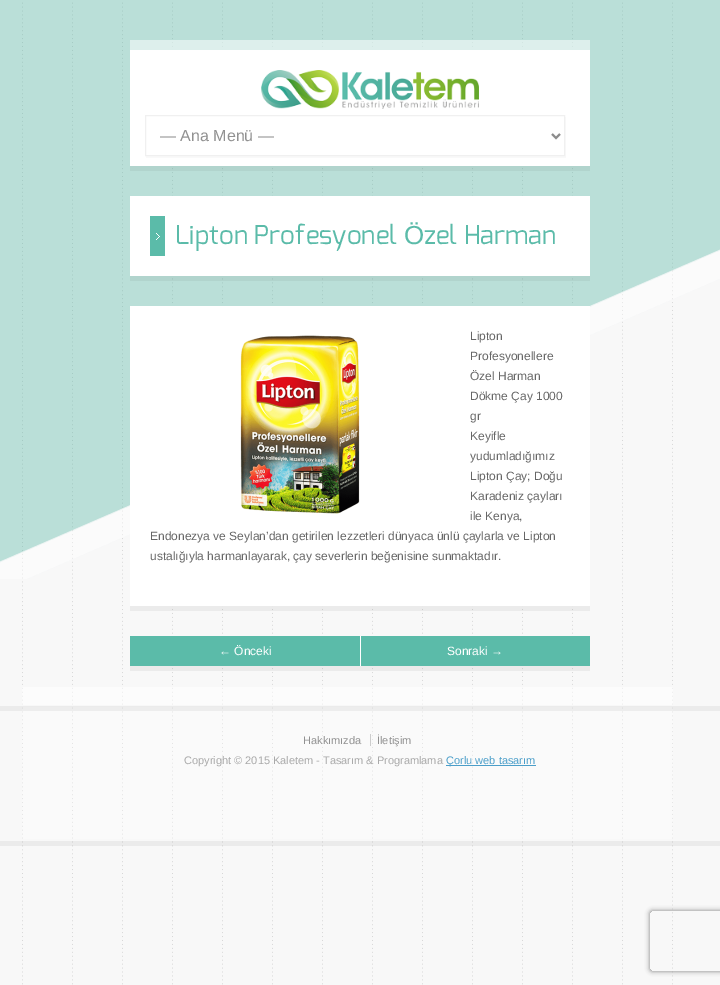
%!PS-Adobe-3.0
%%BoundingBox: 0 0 720 985
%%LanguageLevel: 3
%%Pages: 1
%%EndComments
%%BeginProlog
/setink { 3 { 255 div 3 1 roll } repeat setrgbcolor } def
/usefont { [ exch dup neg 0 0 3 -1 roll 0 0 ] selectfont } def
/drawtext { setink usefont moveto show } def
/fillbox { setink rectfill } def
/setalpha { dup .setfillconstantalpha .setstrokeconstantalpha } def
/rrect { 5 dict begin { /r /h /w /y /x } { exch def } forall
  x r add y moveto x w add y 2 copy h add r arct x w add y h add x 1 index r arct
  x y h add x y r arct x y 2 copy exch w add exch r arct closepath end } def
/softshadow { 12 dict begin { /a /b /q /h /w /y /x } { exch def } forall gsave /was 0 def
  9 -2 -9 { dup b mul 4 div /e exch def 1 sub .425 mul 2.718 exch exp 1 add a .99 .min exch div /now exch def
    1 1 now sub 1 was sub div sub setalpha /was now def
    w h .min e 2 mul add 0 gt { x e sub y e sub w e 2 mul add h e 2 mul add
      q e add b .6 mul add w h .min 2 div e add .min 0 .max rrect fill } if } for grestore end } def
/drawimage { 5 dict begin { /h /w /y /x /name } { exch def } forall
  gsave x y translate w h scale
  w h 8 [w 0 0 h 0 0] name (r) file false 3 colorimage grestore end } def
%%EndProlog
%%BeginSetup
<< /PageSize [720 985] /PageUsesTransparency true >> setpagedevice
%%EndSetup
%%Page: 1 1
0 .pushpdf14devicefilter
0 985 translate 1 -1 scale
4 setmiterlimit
0 0 720 985 255 255 255 fillbox
(assets/img1.rgb) 0 0 720 985 drawimage
(assets/img2.rgb) 0 0 720 579 drawimage
0.5 setalpha
130 40 460 10 255 255 255 fillbox
0.05 setalpha
130 166 460 5 0 0 0 fillbox
1 setalpha
130 50 460 116 255 255 255 fillbox
(assets/img3.rgb) 261 70 218 39 drawimage
249 249 249 setink
146 156 moveto 146 158 lineto 566 158 lineto 566 117 lineto 565 117 lineto 565 156 lineto closepath fill
240 240 240 setink
145.5 115.5 419 40 rectstroke
140 140 140 setink
2 setlinewidth
552 134 moveto 556 138 lineto 560 134 lineto stroke
(— Ana Menü —) 160 141 /LiberationSans-Regular 16 145 145 145 drawtext
0.05 setalpha
130 276 460 5 0 0 0 fillbox
1 setalpha
130 196 460 80 255 255 255 fillbox
150 216 15 40 91 187 169 fillbox
(assets/img4.rgb) 156 233 4 7 drawimage
(Lipton Profesyonel) 175 244 /Exo-Regular 26 91 187 169 drawtext
(Ö) 404 244 /LiberationSans-Regular 26 91 187 169 drawtext
(zel Harman) 424 244 /Exo-Regular 26 91 187 169 drawtext
0.05 setalpha
130 606 460 5 0 0 0 fillbox
1 setalpha
130 306 460 300 255 255 255 fillbox
(Lipton) 470 340 /LiberationSans-Regular 12 102 102 102 drawtext
(Profesyonellere) 470 360 /LiberationSans-Regular 12 102 102 102 drawtext
(Özel Harman) 470 380 /LiberationSans-Regular 12 102 102 102 drawtext
(Dökme Çay 1000) 470 400 /LiberationSans-Regular 12 102 102 102 drawtext
(gr) 470 420 /LiberationSans-Regular 12 102 102 102 drawtext
(Keyifle) 470 440 /LiberationSans-Regular 12 102 102 102 drawtext
(yudumladığımız) 470 460 /LiberationSans-Regular 12 102 102 102 drawtext
(Lipton Çay; Doğu) 470 480 /LiberationSans-Regular 12 102 102 102 drawtext
(Karadeniz çayları) 470 500 /LiberationSans-Regular 12 102 102 102 drawtext
(ile Kenya,) 470 520 /LiberationSans-Regular 12 102 102 102 drawtext
(Endonezya ve Seylan’dan getirilen lezzetleri dünyaca ünlü çaylarla ve Lipton) 150 540 /LiberationSans-Regular 12 102 102 102 drawtext
(ustalığıyla harmanlayarak, çay severlerin beğenisine sunmaktadır.) 150 560 /LiberationSans-Regular 12 102 102 102 drawtext
(assets/img5.rgb) 240 335 120 179 drawimage
0.05 setalpha
130 666 230 5 0 0 0 fillbox
1 setalpha
130 636 230 30 91 187 169 fillbox
(← Önceki) 219 655 /LiberationSans-Regular 12 255 255 255 drawtext
0.05 setalpha
360 666 230 5 0 0 0 fillbox
1 setalpha
361 636 229 30 91 187 169 fillbox
360 636 1 30 255 255 255 fillbox
(Sonraki →) 447 655 /LiberationSans-Regular 12 255 255 255 drawtext
0.5 setalpha
22 687 651 18 255 255 255 fillbox
0.05 setalpha
0 841 720 5 0 0 0 fillbox
0.3 setalpha
22 707 651 132 255 255 255 fillbox
0.05 setalpha
0 706 720 5 0 0 0 fillbox
1 setalpha
(Hakkımızda) 303 744 /LiberationSans-Regular 11 145 145 145 drawtext
(İletişim) 377 744 /LiberationSans-Regular 11 145 145 145 drawtext
370 734 1 12 205 205 205 fillbox
(Copyright © 2015 Kaletem - Tasarım & Programlama) 184 764 /LiberationSans-Regular 11 169 169 169 drawtext
446 765 90 1 75 158 201 fillbox
(Çorlu web tasarım) 446 764 /LiberationSans-Regular 11 75 158 201 drawtext
gsave
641 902 moveto 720 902 lineto 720 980 lineto 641 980 lineto closepath 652 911 moveto 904 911 lineto 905 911 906 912 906 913 curveto 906 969 lineto 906 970 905 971 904 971 curveto 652 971 lineto 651 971 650 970 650 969 curveto 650 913 lineto 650 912 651 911 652 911 curveto closepath eoclip newpath
128 128 128 setink
650 911 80 60 2 2.5 1 softshadow
grestore
.poppdf14devicefilter showpage
%%EOF
